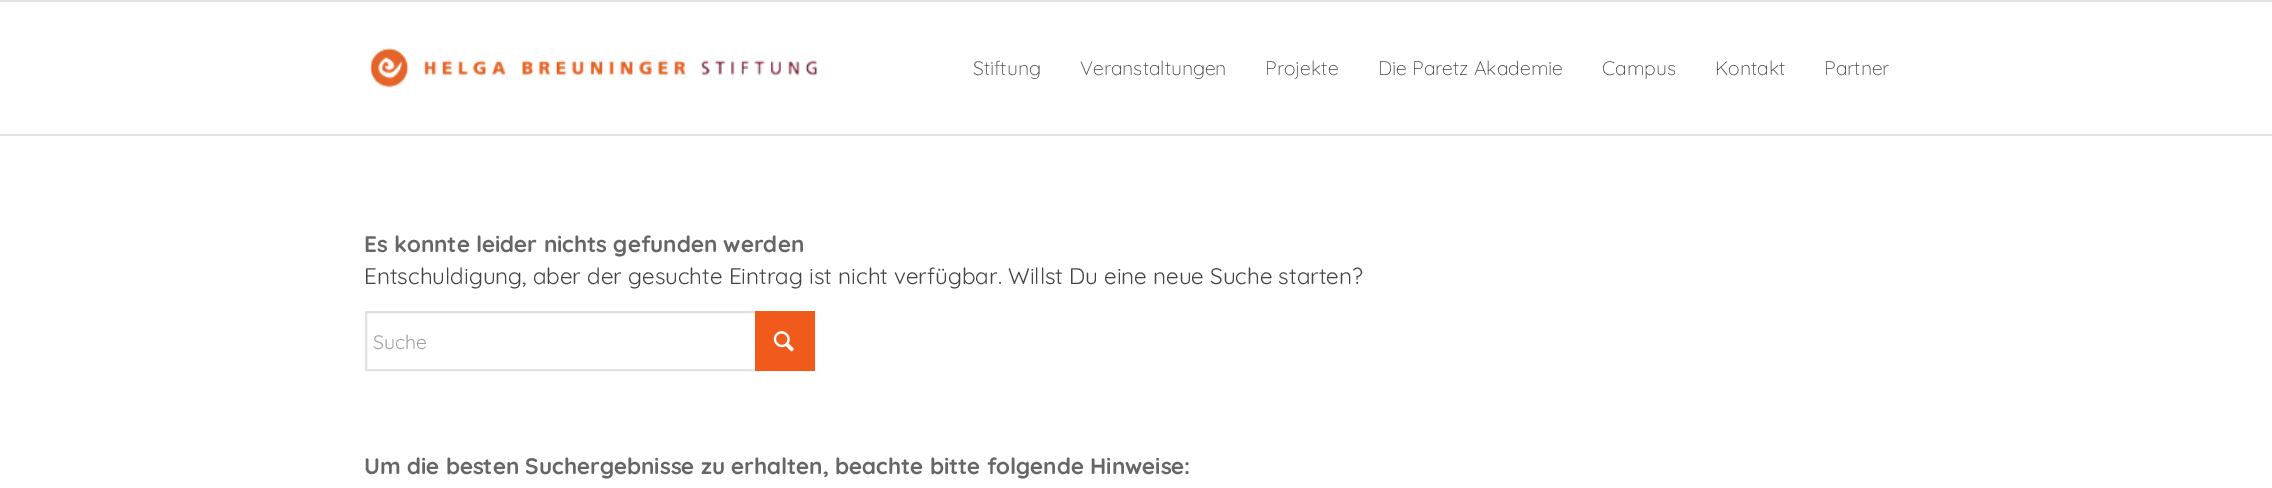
%!PS-Adobe-3.0
%%BoundingBox: 0 0 2272 488
%%LanguageLevel: 3
%%Pages: 1
%%EndComments
%%BeginProlog
/setink { 3 { 255 div 3 1 roll } repeat setrgbcolor } def
/usefont { [ exch dup neg 0 0 3 -1 roll 0 0 ] selectfont } def
/drawtext { setink usefont moveto show } def
/fillbox { setink rectfill } def
/drawimage { 5 dict begin { /h /w /y /x /name } { exch def } forall
  gsave x y translate w h scale
  w h 8 [w 0 0 h 0 0] name (r) file false 3 colorimage grestore end } def
%%EndProlog
%%BeginSetup
<< /PageSize [2272 488] >> setpagedevice
%%EndSetup
%%Page: 1 1
0 488 translate 1 -1 scale
4 setmiterlimit
0 0 2272 488 255 255 255 fillbox
0 0 2272 2 225 225 225 fillbox
0 134 2272 2 225 225 225 fillbox
(assets/img1.rgb) 369 48 449 40 drawimage
(Stiftung) 973 75 /Quicksand-Light 19.5 68 68 68 drawtext
(Veranstaltungen) 1080 75 /Quicksand-Light 19.5 68 68 68 drawtext
(Projekte) 1265 75 /Quicksand-Light 19.5 68 68 68 drawtext
(Die Paretz Akademie) 1378 75 /Quicksand-Light 19.5 68 68 68 drawtext
(Campus) 1602 75 /Quicksand-Light 19.5 68 68 68 drawtext
(Kontakt) 1715 75 /Quicksand-Light 19.5 68 68 68 drawtext
(Partner) 1824 75 /Quicksand-Light 19.5 68 68 68 drawtext
(Es konnte leider nichts gefunden werden) 364 252 /Quicksand-Bold 22.5 102 102 102 drawtext
(Entschuldigung, aber der gesuchte Eintrag ist nicht verfügbar. Willst Du eine neue Suche starten?) 364 284 /Quicksand-Regular 22.5 68 68 68 drawtext
225 225 225 setink
2 setlinewidth
366 312 448 58 rectstroke
755 311 60 60 240 90 26 fillbox
(Suche) 373 349 /Quicksand-Regular 19.5 162 162 162 drawtext
(assets/img2.rgb) 773 331 21 21 drawimage
(Um die besten Suchergebnisse zu erhalten, beachte bitte folgende Hinweise:) 364 474 /Quicksand-Bold 22.5 102 102 102 drawtext
showpage
%%EOF
